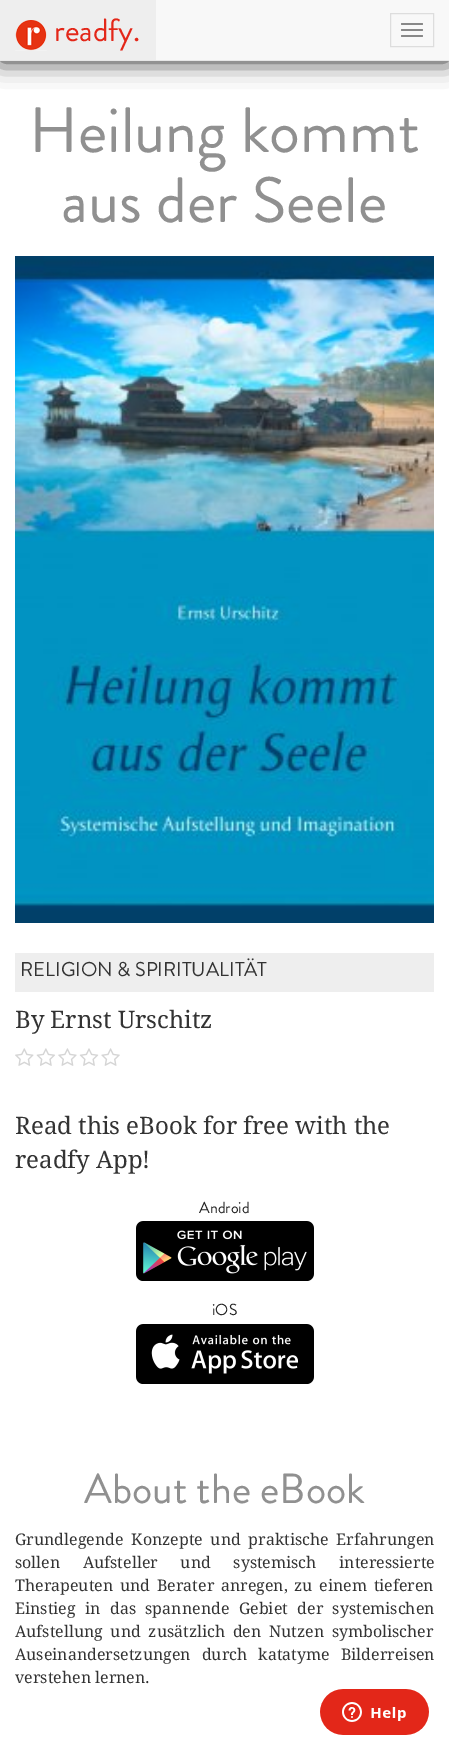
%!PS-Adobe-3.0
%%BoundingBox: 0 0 449 1749
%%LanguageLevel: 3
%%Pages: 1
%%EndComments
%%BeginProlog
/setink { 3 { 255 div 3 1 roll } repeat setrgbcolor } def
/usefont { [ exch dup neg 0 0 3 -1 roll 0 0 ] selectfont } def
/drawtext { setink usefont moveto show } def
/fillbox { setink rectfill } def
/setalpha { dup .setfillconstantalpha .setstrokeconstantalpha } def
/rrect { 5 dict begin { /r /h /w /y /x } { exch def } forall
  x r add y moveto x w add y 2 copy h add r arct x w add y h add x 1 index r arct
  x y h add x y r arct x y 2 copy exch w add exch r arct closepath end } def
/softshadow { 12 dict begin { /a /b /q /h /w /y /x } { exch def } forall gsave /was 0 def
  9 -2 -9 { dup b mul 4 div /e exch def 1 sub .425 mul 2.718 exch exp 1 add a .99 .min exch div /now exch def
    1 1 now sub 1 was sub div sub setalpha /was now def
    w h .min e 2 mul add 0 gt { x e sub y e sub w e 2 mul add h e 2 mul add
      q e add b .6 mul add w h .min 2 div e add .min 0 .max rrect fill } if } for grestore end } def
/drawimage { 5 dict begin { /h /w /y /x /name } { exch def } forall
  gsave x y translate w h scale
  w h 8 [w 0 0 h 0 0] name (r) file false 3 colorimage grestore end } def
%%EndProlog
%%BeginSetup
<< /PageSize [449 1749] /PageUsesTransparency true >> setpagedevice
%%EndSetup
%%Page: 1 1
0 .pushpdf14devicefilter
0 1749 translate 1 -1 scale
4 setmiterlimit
0 0 449 1749 255 255 255 fillbox
34 34 34 setink
0 0 449 61 0 12.5 1 softshadow
156 0 293 60 248 248 248 fillbox
0 60 449 1 231 231 231 fillbox
0 0 156 60 238 238 238 fillbox
(assets/img1.rgb) 15 20 32 31 drawimage
(readfy.) 54 41 /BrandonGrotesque-Regular 32 227 39 25 drawtext
221 221 221 setink
390.5 13.5 43 33 rectstroke
136 136 136 setink
401 23 22 2 1 rrect fill
401 29 22 2 1 rrect fill
401 35 22 2 1 rrect fill
(Heilung kommt) 29 152 /BrandonGrotesque-Regular 64 144 144 144 drawtext
(aus der Seele) 61 222 /BrandonGrotesque-Regular 64 144 144 144 drawtext
(assets/img2.rgb) 15 256 419 667 drawimage
15 953 419 39 238 238 238 fillbox
(RELIGION & SPIRITUALITÄT) 20 976 /BrandonGrotesque-Regular 20 51 51 51 drawtext
(By Ernst Urschitz) 15 1028 /DroidSerif-Regular 24 51 51 51 drawtext
(assets/img3.rgb) 15 1048 105 18 drawimage
(Read this eBook for free with the) 15 1134 /DroidSerif-Regular 24 51 51 51 drawtext
(readfy App!) 15 1168 /DroidSerif-Regular 24 51 51 51 drawtext
(Android) 199 1213 /BrandonGrotesque-Regular 16 34 34 34 drawtext
(assets/img4.rgb) 136 1221 178 60 drawimage
(iOS) 212 1315 /BrandonGrotesque-Regular 16 34 34 34 drawtext
(assets/img5.rgb) 136 1324 178 60 drawimage
(About the eBook) 84 1503 /BrandonGrotesque-Regular 42 144 144 144 drawtext
/DroidSerif-Regular 16 usefont
51 51 51 setink
15 1545 moveto 3.5 0 32 (Grundlegende Konzepte und praktische Erfahrungen) widthshow
15 1568 moveto 18.5 0 32 (sollen Aufsteller und systemisch interessierte) widthshow
15 1591 moveto 2.5 0 32 (Therapeuten und Berater anregen, zu einem tieferen) widthshow
15 1614 moveto 5.25 0 32 (Einstieg in das spannende Gebiet der systemischen) widthshow
15 1637 moveto 3.5 0 32 (Aufstellung und zusätzlich den Nutzen symbolischer) widthshow
15 1660 moveto 7 0 32 (Auseinandersetzungen durch katatyme Bilderreisen) widthshow
(verstehen lernen.) 15 1683 /DroidSerif-Regular 16 51 51 51 drawtext
(assets/img6.rgb) 320 1689 109 46 drawimage
.poppdf14devicefilter showpage
%%EOF
